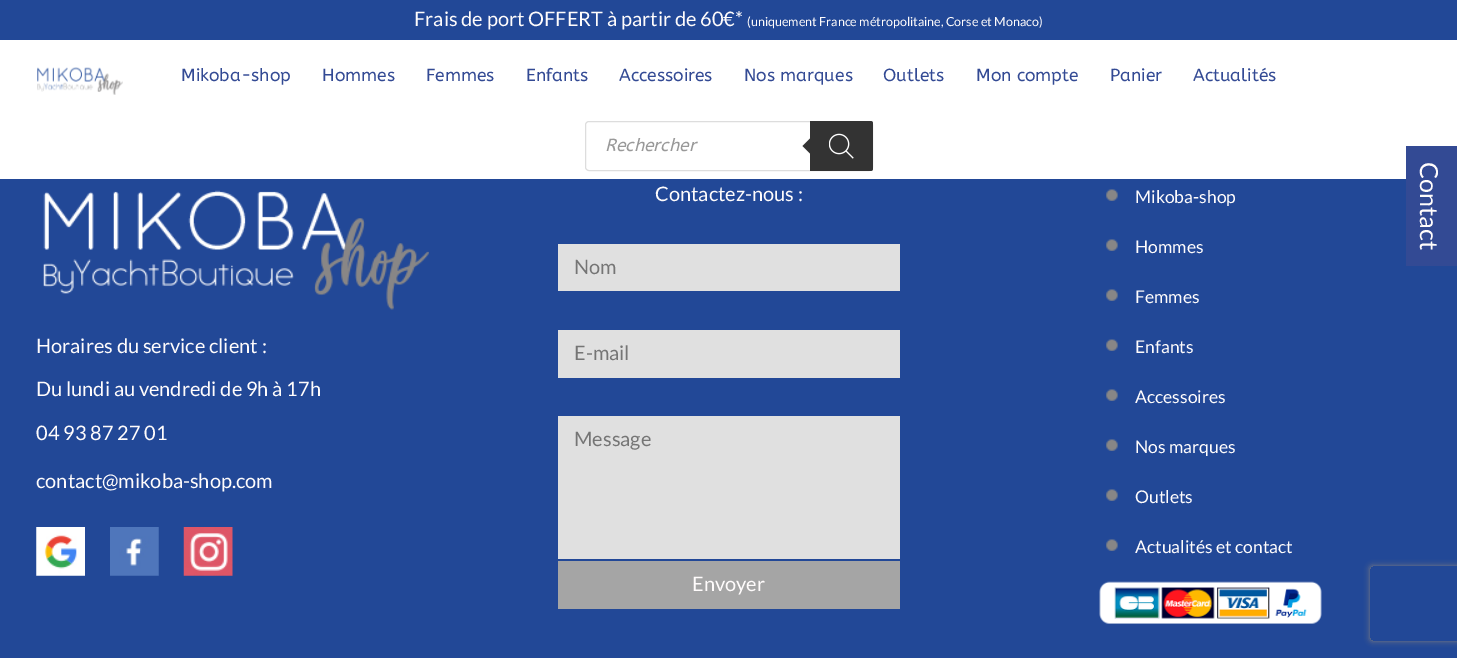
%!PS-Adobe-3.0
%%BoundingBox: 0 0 1457 658
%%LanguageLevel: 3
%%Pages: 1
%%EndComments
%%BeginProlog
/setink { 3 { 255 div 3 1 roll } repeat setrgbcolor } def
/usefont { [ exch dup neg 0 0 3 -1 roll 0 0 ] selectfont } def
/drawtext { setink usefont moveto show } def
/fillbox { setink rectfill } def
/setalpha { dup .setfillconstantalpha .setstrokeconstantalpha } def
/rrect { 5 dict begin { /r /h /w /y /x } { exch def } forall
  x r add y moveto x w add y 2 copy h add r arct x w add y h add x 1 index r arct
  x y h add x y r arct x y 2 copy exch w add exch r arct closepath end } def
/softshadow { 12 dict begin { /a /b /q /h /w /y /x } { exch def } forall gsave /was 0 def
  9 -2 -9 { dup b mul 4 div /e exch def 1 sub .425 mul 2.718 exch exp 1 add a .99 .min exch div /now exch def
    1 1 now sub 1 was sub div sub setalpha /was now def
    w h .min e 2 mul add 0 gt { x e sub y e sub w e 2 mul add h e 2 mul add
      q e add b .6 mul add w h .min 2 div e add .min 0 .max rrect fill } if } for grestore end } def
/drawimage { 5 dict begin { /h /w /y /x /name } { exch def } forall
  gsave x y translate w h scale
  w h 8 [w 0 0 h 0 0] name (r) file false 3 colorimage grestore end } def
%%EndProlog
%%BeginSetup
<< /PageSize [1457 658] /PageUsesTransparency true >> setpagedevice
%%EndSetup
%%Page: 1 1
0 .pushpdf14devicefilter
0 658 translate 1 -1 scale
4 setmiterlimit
0 0 1457 658 34 72 151 fillbox
0 40 1457 139 255 255 255 fillbox
(Frais de port OFFERT à partir de 60€*) 414 26 /Lato-Regular 20 255 252 252 drawtext
(\(uniquement France métropolitaine, Corse et Monaco\)) 747 26 /Lato-Regular 12.5 255 252 252 drawtext
(assets/img1.rgb) 37 67 86 28 drawimage
(Mikoba-shop) 181 81 /ABeeZee-Regular 17.5 51 74 148 drawtext
(Hommes) 322 81 /ABeeZee-Regular 17.5 51 74 148 drawtext
(Femmes) 426 81 /ABeeZee-Regular 17.5 51 74 148 drawtext
(Enfants) 526 81 /ABeeZee-Regular 17.5 51 74 148 drawtext
(Accessoires) 619 81 /ABeeZee-Regular 17.5 51 74 148 drawtext
(Nos marques) 744 81 /ABeeZee-Regular 17.5 51 74 148 drawtext
(Outlets) 883 81 /ABeeZee-Regular 17.5 51 74 148 drawtext
(Mon compte) 976 81 /ABeeZee-Regular 17.5 51 74 148 drawtext
(Panier) 1110 81 /ABeeZee-Regular 17.5 51 74 148 drawtext
(Actualités) 1193 81 /ABeeZee-Regular 17.5 51 74 148 drawtext
221 221 221 setink
585.5 121.5 287 49 3.5 rrect stroke
(Rechercher) 605 151 /ABeeZee-Italic 17.5 153 153 153 drawtext
51 51 51 setink
810 121 moveto 870.5 121 lineto 872 121 873 122 873 123.5 curveto 873 168.5 lineto 873 170 872 171 870.5 171 curveto 810 171 lineto closepath fill
812.5 136 moveto 812.5 156 lineto 802.5 146 lineto closepath fill
(assets/img2.rgb) 829 133 25 26 drawimage
(assets/img3.rgb) 43 190 386 120 drawimage
(Horaires du service client :) 36 353 /Lato-Regular 20 255 252 252 drawtext
(Du lundi au vendredi de 9h à 17h) 36 396 /Lato-Regular 20 255 252 252 drawtext
(04 93 87 27 01) 36 440 /Lato-Regular 20 255 252 252 drawtext
(contact@mikoba-shop.com) 36 488 /Lato-Regular 20 255 252 252 drawtext
(assets/img4.rgb) 36 527 49 49 drawimage
(assets/img5.rgb) 110 527 49 49 drawimage
(assets/img6.rgb) 183 527 50 49 drawimage
(Contactez-nous :) 655 201 /Lato-Regular 20 255 252 252 drawtext
558 244 342 47 224 224 224 fillbox
(Nom) 574 274 /Lato-Regular 20 117 117 117 drawtext
558 330 342 48 224 224 224 fillbox
(E-mail) 574 360 /Lato-Regular 20 117 117 117 drawtext
558 416 342 143 224 224 224 fillbox
(Message) 574 446 /Lato-Regular 20 117 117 117 drawtext
558 561 342 48 165 165 165 fillbox
(Envoyer) 692 591 /Lato-Regular 20 255 252 252 drawtext
(assets/img7.rgb) 1106 189 12 12 drawimage
(Mikoba-shop) 1135 203 /Lato-Regular 17.5 255 252 252 drawtext
(assets/img7.rgb) 1106 239 12 12 drawimage
(Hommes) 1135 253 /Lato-Regular 17.5 255 252 252 drawtext
(assets/img7.rgb) 1106 289 12 12 drawimage
(Femmes) 1135 303 /Lato-Regular 17.5 255 252 252 drawtext
(assets/img8.rgb) 1106 339 12 12 drawimage
(Enfants) 1135 353 /Lato-Regular 17.5 255 252 252 drawtext
(assets/img7.rgb) 1106 389 12 12 drawimage
(Accessoires) 1135 403 /Lato-Regular 17.5 255 252 252 drawtext
(assets/img7.rgb) 1106 439 12 12 drawimage
(Nos marques) 1135 453 /Lato-Regular 17.5 255 252 252 drawtext
(assets/img7.rgb) 1106 489 12 12 drawimage
(Outlets) 1135 503 /Lato-Regular 17.5 255 252 252 drawtext
(assets/img7.rgb) 1106 539 12 12 drawimage
(Actualités et contact) 1135 553 /Lato-Regular 17.5 255 252 252 drawtext
(assets/img9.rgb) 1099 581 223 43 drawimage
1406 146 51 120 51 74 148 fillbox
/Lato-Regular 25 usefont
255 252 252 setink
gsave 1420 162 translate 90 rotate 0 0 moveto (Contact) show grestore
gsave
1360 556 moveto 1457 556 lineto 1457 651 lineto 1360 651 lineto closepath 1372.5 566 moveto 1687.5 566 lineto 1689 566 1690 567 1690 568.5 curveto 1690 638.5 lineto 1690 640 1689 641 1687.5 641 curveto 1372.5 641 lineto 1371 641 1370 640 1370 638.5 curveto 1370 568.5 lineto 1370 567 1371 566 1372.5 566 curveto closepath eoclip newpath
128 128 128 setink
1370 566 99 75 2.5 3 1 softshadow
grestore
.poppdf14devicefilter showpage
%%EOF
